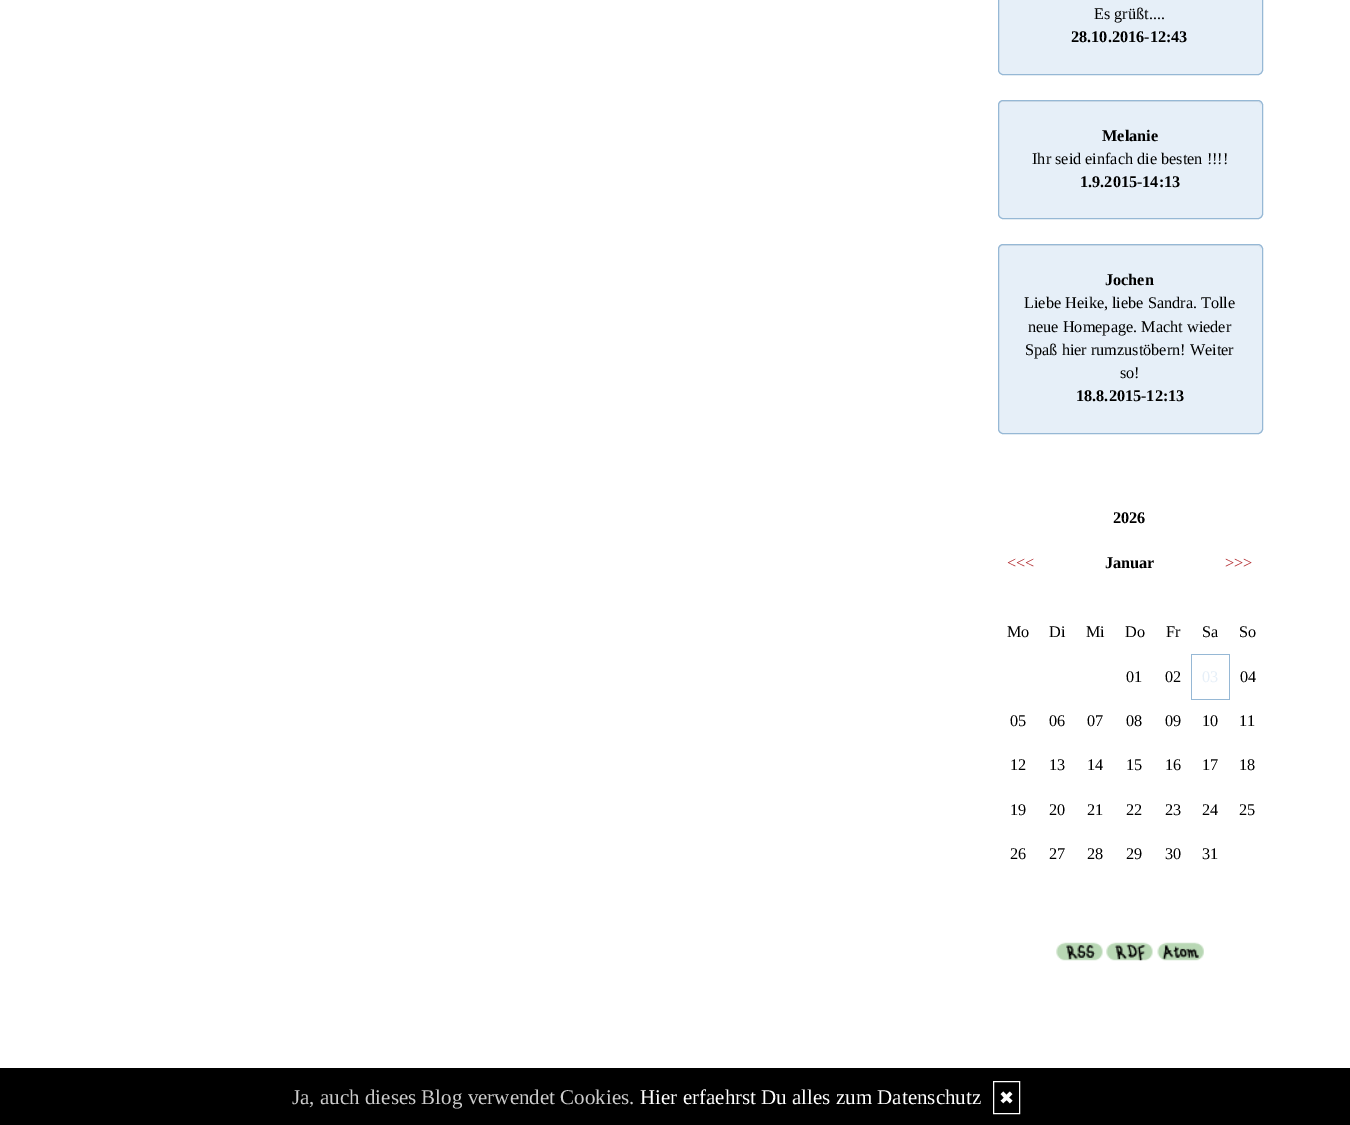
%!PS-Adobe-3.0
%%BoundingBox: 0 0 1350 1125
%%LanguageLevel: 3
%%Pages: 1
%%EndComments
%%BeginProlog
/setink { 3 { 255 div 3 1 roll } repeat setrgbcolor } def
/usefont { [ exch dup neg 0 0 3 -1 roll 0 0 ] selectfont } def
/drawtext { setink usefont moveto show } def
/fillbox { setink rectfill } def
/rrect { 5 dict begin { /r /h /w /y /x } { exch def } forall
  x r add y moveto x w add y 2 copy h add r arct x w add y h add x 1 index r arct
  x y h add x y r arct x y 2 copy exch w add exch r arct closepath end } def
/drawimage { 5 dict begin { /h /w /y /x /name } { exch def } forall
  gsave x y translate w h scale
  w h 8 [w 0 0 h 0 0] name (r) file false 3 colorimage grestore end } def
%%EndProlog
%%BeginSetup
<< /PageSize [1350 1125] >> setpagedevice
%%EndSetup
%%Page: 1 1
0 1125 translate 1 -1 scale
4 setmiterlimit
0 0 1350 1125 255 255 255 fillbox
230 239 248 setink
998.5 -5.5 264 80 4.5 rrect gsave fill grestore
150 184 213 setink
stroke
(Es grüßt....) 1094 19 /LiberationSerif-Regular 16.25 0 0 0 drawtext
(28.10.2016-12:43) 1071 42 /LiberationSerif-Bold 16.25 0 0 0 drawtext
230 239 248 setink
998 100 265 119 5 rrect fill
219 227 236 setink
1002 102 moveto 1258 102 lineto 1260 102 1261 104 1261 106 curveto 1261 105 lineto 1261 103 1259 101 1257 101 curveto 1003 101 lineto 1001 101 999 103 999 105 curveto 999 106 lineto 999 104 1000 102 1002 102 curveto closepath fill
150 184 213 setink
998.5 100.5 264 118 4.5 rrect stroke
(Melanie) 1102 141 /LiberationSerif-Bold 16.25 0 0 0 drawtext
(Ihr seid einfach die besten !!!!) 1032 164 /LiberationSerif-Regular 16.25 0 0 0 drawtext
(1.9.2015-14:13) 1080 187 /LiberationSerif-Bold 16.25 0 0 0 drawtext
230 239 248 setink
998 244 265 190 5 rrect fill
219 227 236 setink
1002 246 moveto 1258 246 lineto 1260 246 1261 248 1261 250 curveto 1261 249 lineto 1261 247 1259 245 1257 245 curveto 1003 245 lineto 1001 245 999 247 999 249 curveto 999 250 lineto 999 248 1000 246 1002 246 curveto closepath fill
150 184 213 setink
998.5 244.5 264 189 4.5 rrect stroke
(Jochen) 1105 285 /LiberationSerif-Bold 16.25 0 0 0 drawtext
(Liebe Heike, liebe Sandra. Tolle) 1024 308 /LiberationSerif-Regular 16.25 0 0 0 drawtext
(neue Homepage. Macht wieder) 1028 332 /LiberationSerif-Regular 16.25 0 0 0 drawtext
(Spaß hier rumzustöbern! Weiter) 1025 355 /LiberationSerif-Regular 16.25 0 0 0 drawtext
(so!) 1120 378 /LiberationSerif-Regular 16.25 0 0 0 drawtext
(18.8.2015-12:13) 1076 401 /LiberationSerif-Bold 16.25 0 0 0 drawtext
(2026) 1113 523 /LiberationSerif-Bold 16.25 0 0 0 drawtext
(<<<) 1007 568 /LiberationSerif-Regular 16.25 176 37 42 drawtext
(Januar) 1105 568 /LiberationSerif-Bold 16.25 0 0 0 drawtext
(>>>) 1225 568 /LiberationSerif-Regular 16.25 176 37 42 drawtext
(Mo) 1007 637 /LiberationSerif-Regular 16.25 0 0 0 drawtext
(Di) 1049 637 /LiberationSerif-Regular 16.25 0 0 0 drawtext
(Mi) 1086 637 /LiberationSerif-Regular 16.25 0 0 0 drawtext
(Do) 1125 637 /LiberationSerif-Regular 16.25 0 0 0 drawtext
(Fr) 1166 637 /LiberationSerif-Regular 16.25 0 0 0 drawtext
(Sa) 1202 637 /LiberationSerif-Regular 16.25 0 0 0 drawtext
(So) 1239 637 /LiberationSerif-Regular 16.25 0 0 0 drawtext
(01) 1126 682 /LiberationSerif-Regular 16.25 0 0 0 drawtext
(02) 1165 682 /LiberationSerif-Regular 16.25 0 0 0 drawtext
1191 654 39 1 150 184 213 fillbox
1229 654 1 46 150 184 213 fillbox
1191 699 39 1 150 184 213 fillbox
1191 654 1 46 150 184 213 fillbox
(03) 1202 682 /LiberationSerif-Regular 16.25 230 239 248 drawtext
(04) 1240 682 /LiberationSerif-Regular 16.25 0 0 0 drawtext
(05) 1010 726 /LiberationSerif-Regular 16.25 0 0 0 drawtext
(06) 1049 726 /LiberationSerif-Regular 16.25 0 0 0 drawtext
(07) 1087 726 /LiberationSerif-Regular 16.25 0 0 0 drawtext
(08) 1126 726 /LiberationSerif-Regular 16.25 0 0 0 drawtext
(09) 1165 726 /LiberationSerif-Regular 16.25 0 0 0 drawtext
(10) 1202 726 /LiberationSerif-Regular 16.25 0 0 0 drawtext
(11) 1239 726 /LiberationSerif-Regular 16.25 0 0 0 drawtext
(12) 1010 770 /LiberationSerif-Regular 16.25 0 0 0 drawtext
(13) 1049 770 /LiberationSerif-Regular 16.25 0 0 0 drawtext
(14) 1087 770 /LiberationSerif-Regular 16.25 0 0 0 drawtext
(15) 1126 770 /LiberationSerif-Regular 16.25 0 0 0 drawtext
(16) 1165 770 /LiberationSerif-Regular 16.25 0 0 0 drawtext
(17) 1202 770 /LiberationSerif-Regular 16.25 0 0 0 drawtext
(18) 1239 770 /LiberationSerif-Regular 16.25 0 0 0 drawtext
(19) 1010 815 /LiberationSerif-Regular 16.25 0 0 0 drawtext
(20) 1049 815 /LiberationSerif-Regular 16.25 0 0 0 drawtext
(21) 1087 815 /LiberationSerif-Regular 16.25 0 0 0 drawtext
(22) 1126 815 /LiberationSerif-Regular 16.25 0 0 0 drawtext
(23) 1165 815 /LiberationSerif-Regular 16.25 0 0 0 drawtext
(24) 1202 815 /LiberationSerif-Regular 16.25 0 0 0 drawtext
(25) 1239 815 /LiberationSerif-Regular 16.25 0 0 0 drawtext
(26) 1010 859 /LiberationSerif-Regular 16.25 0 0 0 drawtext
(27) 1049 859 /LiberationSerif-Regular 16.25 0 0 0 drawtext
(28) 1087 859 /LiberationSerif-Regular 16.25 0 0 0 drawtext
(29) 1126 859 /LiberationSerif-Regular 16.25 0 0 0 drawtext
(30) 1165 859 /LiberationSerif-Regular 16.25 0 0 0 drawtext
(31) 1202 859 /LiberationSerif-Regular 16.25 0 0 0 drawtext
(assets/img1.rgb) 1056 942 47 19 drawimage
(assets/img2.rgb) 1106 942 47 19 drawimage
(assets/img3.rgb) 1157 942 47 19 drawimage
0 1069 1350 56 0 0 0 fillbox
-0.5 1068.5 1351 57 rectstroke
(Ja, auch dieses Blog verwendet Cookies.) 292 1104 /LiberationSerif-Regular 21 204 204 204 drawtext
(Hier erfaehrst Du alles zum Datenschutz) 640 1104 /LiberationSerif-Regular 21 255 255 255 drawtext
993.5 1081.5 26 32 rectstroke
(✖) 999 1104 /DejaVuSans-Regular 18 255 255 255 drawtext
showpage
%%EOF
